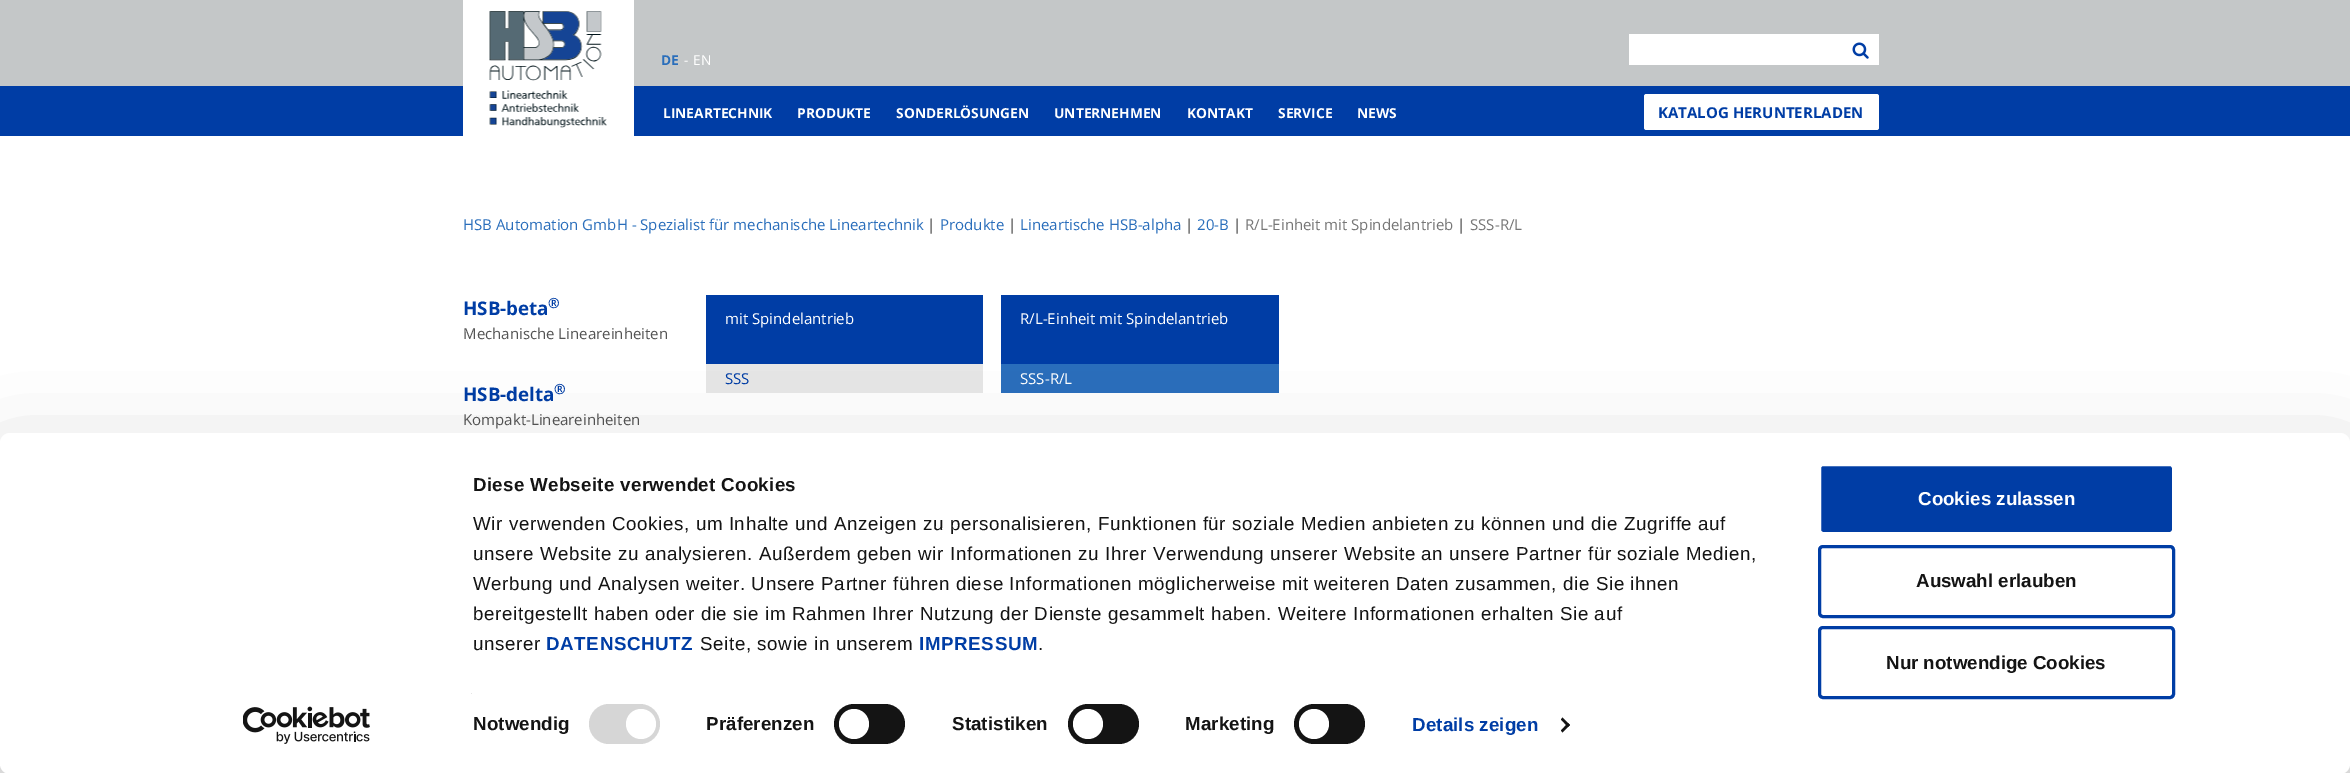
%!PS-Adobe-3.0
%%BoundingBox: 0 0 2350 773
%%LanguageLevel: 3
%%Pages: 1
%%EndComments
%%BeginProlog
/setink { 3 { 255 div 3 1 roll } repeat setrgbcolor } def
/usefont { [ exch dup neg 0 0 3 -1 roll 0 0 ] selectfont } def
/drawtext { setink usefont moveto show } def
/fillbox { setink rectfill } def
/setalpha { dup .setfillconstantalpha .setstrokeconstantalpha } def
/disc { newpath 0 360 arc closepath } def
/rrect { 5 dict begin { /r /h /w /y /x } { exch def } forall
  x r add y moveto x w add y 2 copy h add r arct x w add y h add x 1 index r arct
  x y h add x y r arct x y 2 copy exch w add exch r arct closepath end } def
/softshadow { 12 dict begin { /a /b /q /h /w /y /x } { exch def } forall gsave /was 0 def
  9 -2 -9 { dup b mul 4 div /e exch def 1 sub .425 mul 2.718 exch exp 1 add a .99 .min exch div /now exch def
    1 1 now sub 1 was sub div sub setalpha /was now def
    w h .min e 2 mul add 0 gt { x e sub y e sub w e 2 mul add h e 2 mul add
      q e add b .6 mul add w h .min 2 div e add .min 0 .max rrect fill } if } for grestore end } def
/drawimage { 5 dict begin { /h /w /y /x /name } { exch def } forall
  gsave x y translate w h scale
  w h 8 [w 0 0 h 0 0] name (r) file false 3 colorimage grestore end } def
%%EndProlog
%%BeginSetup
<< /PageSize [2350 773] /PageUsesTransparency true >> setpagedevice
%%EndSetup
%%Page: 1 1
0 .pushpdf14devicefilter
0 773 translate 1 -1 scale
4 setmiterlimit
0 0 2350 773 255 255 255 fillbox
0 0 2350 86 196 199 200 fillbox
0 86 2350 50 0 61 165 fillbox
463 0 171 136 255 255 255 fillbox
(assets/img1.rgb) 489 11 118 117 drawimage
1629 34 250 31 255 255 255 fillbox
(assets/img2.rgb) 1852 42 17 17 drawimage
(DE) 661 65 /OpenSans-Bold 13.75 42 110 187 drawtext
(-) 684 65 /OpenSans-Regular 13.75 255 255 255 drawtext
(EN) 693 65 /OpenSans-Regular 13.75 255 255 255 drawtext
(LINEARTECHNIK) 663 118 /OpenSans-Bold 13.75 255 255 255 drawtext
(PRODUKTE) 797 118 /OpenSans-Bold 13.75 255 255 255 drawtext
(SONDERLÖSUNGEN) 896 118 /OpenSans-Bold 13.75 255 255 255 drawtext
(UNTERNEHMEN) 1054 118 /OpenSans-Bold 13.75 255 255 255 drawtext
(KONTAKT) 1187 118 /OpenSans-Bold 13.75 255 255 255 drawtext
(SERVICE) 1278 118 /OpenSans-Bold 13.75 255 255 255 drawtext
(NEWS) 1357 118 /OpenSans-Bold 13.75 255 255 255 drawtext
1644 94 235 36 2.5 rrect fill
(KATALOG HERUNTERLADEN) 1658 118 /OpenSans-Bold 15 0 61 165 drawtext
(HSB Automation GmbH - Spezialist für mechanische Lineartechnik) 463 230 /OpenSans-Regular 15 42 110 187 drawtext
(|) 927 230 /OpenSans-Regular 15 85 85 85 drawtext
(Produkte) 940 230 /OpenSans-Regular 15 42 110 187 drawtext
(|) 1008 230 /OpenSans-Regular 15 85 85 85 drawtext
(Lineartische HSB-alpha) 1020 230 /OpenSans-Regular 15 42 110 187 drawtext
(|) 1185 230 /OpenSans-Regular 15 85 85 85 drawtext
(20-B) 1197 230 /OpenSans-Regular 15 42 110 187 drawtext
(|) 1233 230 /OpenSans-Regular 15 85 85 85 drawtext
(R/L-Einheit mit Spindelantrieb) 1245 230 /OpenSans-Regular 15 119 119 119 drawtext
(|) 1457 230 /OpenSans-Regular 15 85 85 85 drawtext
(SSS-R/L) 1470 230 /OpenSans-Regular 15 119 119 119 drawtext
(HSB-beta) 463 315 /OpenSans-Bold 18.75 0 61 165 drawtext
(®) 548 308 /OpenSans-Bold 14 0 61 165 drawtext
(Mechanische Lineareinheiten) 463 339 /OpenSans-Regular 15 85 85 85 drawtext
(HSB-delta) 463 401 /OpenSans-Bold 18.75 0 61 165 drawtext
(®) 554 394 /OpenSans-Bold 14 0 61 165 drawtext
(Kompakt-Lineareinheiten) 463 425 /OpenSans-Regular 15 85 85 85 drawtext
706 295 277 69 0 61 165 fillbox
(mit Spindelantrieb) 725 324 /OpenSans-Regular 15 255 255 255 drawtext
706 364 277 29 230 230 230 fillbox
(SSS) 725 384 /OpenSans-Regular 15 0 61 165 drawtext
1001 295 278 69 0 61 165 fillbox
(R/L-Einheit mit Spindelantrieb) 1020 324 /OpenSans-Regular 15 255 255 255 drawtext
1001 364 278 29 42 110 187 fillbox
(SSS-R/L) 1020 384 /OpenSans-Regular 15 255 255 255 drawtext
0 0 0 setink
0 470 2350 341 10 44 0.3 softshadow
255 255 255 setink
0 433 2350 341 10 rrect fill
/LiberationSans-Bold 18.75 usefont
20 20 20 setink
473 491 moveto 0.3 0 (Diese Webseite verwendet Cookies) ashow
/LiberationSans-Regular 18.75 usefont
473 530 moveto 0.62 0 (Wir verwenden Cookies, um Inhalte und Anzeigen zu personalisieren, Funktionen für soziale Medien anbieten zu können und die Zugriffe auf) ashow
473 560 moveto 0.62 0 (unsere Website zu analysieren. Außerdem geben wir Informationen zu Ihrer Verwendung unserer Website an unsere Partner für soziale Medien,) ashow
473 590 moveto 0.62 0 (Werbung und Analysen weiter. Unsere Partner führen diese Informationen möglicherweise mit weiteren Daten zusammen, die Sie ihnen) ashow
473 620 moveto 0.62 0 (bereitgestellt haben oder die sie im Rahmen Ihrer Nutzung der Dienste gesammelt haben. Weitere Informationen erhalten Sie auf) ashow
473 650 moveto 0.62 0 (unserer) ashow
/LiberationSans-Bold 18.75 usefont
0 61 165 setink
546 650 moveto 0.62 0 (DATENSCHUTZ) ashow
/LiberationSans-Regular 18.75 usefont
20 20 20 setink
700 650 moveto 0.62 0 (Seite, sowie in unserem) ashow
/LiberationSans-Bold 18.75 usefont
0 61 165 setink
919 650 moveto 0.62 0 (IMPRESSUM) ashow
/LiberationSans-Regular 18.75 usefont
20 20 20 setink
1038 650 moveto 0.62 0 (.) ashow
471 693 1 1 229 229 229 fillbox
/LiberationSans-Bold 18.75 usefont
20 20 20 setink
473 730 moveto 0.1 0 (Notwendig) ashow
214 214 214 setink
589 704 71 40 20 rrect fill
255 255 255 setink
641 724 15 disc fill
20 20 20 setink
706 730 moveto 0.1 0 (Präferenzen) ashow
834 704 71 40 20 rrect fill
255 255 255 setink
854 724 15 disc fill
20 20 20 setink
952 730 moveto 0.1 0 (Statistiken) ashow
1068 704 71 40 20 rrect fill
255 255 255 setink
1088 724 15 disc fill
20 20 20 setink
1185 730 moveto 0.1 0 (Marketing) ashow
1294 704 71 40 20 rrect fill
255 255 255 setink
1314 724 15 disc fill
0 61 165 setink
1412 731 moveto 0.1 0 (Details zeigen) ashow
20 20 20 setink
1562.5 717.5 moveto 1570 725 lineto 1568 727 lineto 1561 719.5 lineto closepath fill
1568 723 moveto 1570 725 lineto 1562.5 732.5 lineto 1561 730.5 lineto closepath fill
0 61 165 setink
1819.5 464.5 354 69 3.5 rrect gsave fill grestore
255 255 255 setink
3 setlinewidth
stroke
(Cookies zulassen) 1918 505 /LiberationSans-Bold 18.75 255 255 255 drawtext
0 61 165 setink
1819.5 546.5 354 70 3.5 rrect stroke
(Auswahl erlauben) 1916 587 /LiberationSans-Bold 18.75 20 20 20 drawtext
0 61 165 setink
1819.5 627.5 354 70 3.5 rrect stroke
(Nur notwendige Cookies) 1886 669 /LiberationSans-Bold 18.75 20 20 20 drawtext
(assets/img3.rgb) 243 706 127 38 drawimage
.poppdf14devicefilter showpage
%%EOF
